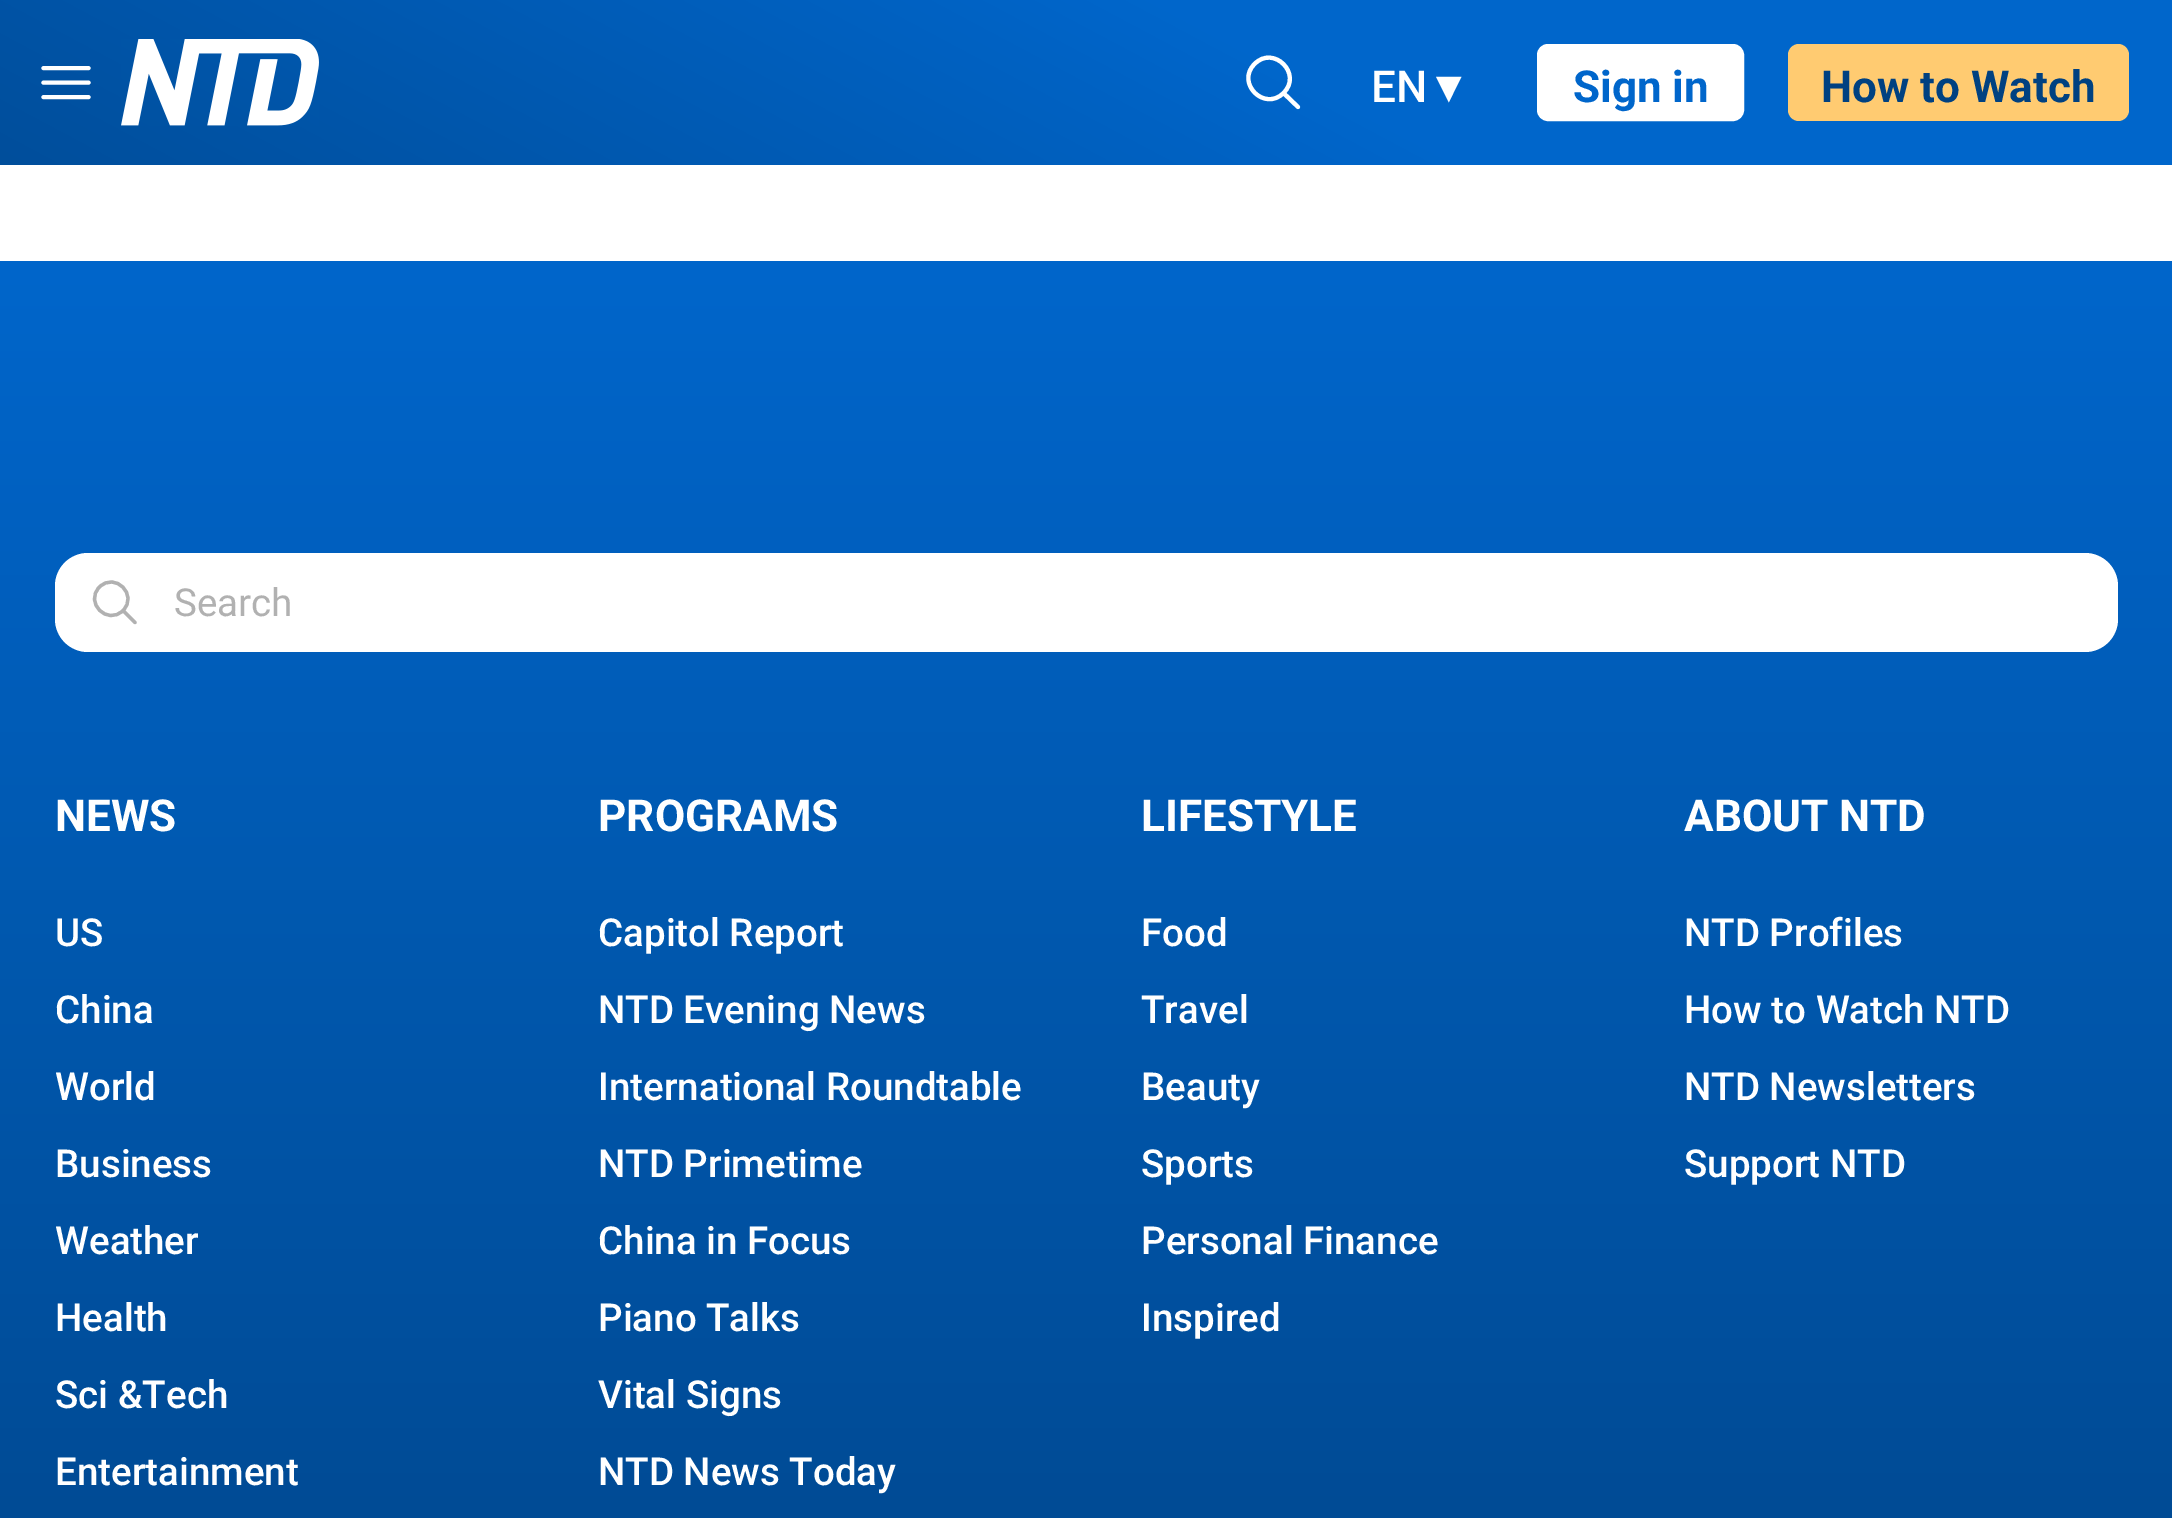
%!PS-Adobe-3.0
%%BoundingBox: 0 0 2172 1518
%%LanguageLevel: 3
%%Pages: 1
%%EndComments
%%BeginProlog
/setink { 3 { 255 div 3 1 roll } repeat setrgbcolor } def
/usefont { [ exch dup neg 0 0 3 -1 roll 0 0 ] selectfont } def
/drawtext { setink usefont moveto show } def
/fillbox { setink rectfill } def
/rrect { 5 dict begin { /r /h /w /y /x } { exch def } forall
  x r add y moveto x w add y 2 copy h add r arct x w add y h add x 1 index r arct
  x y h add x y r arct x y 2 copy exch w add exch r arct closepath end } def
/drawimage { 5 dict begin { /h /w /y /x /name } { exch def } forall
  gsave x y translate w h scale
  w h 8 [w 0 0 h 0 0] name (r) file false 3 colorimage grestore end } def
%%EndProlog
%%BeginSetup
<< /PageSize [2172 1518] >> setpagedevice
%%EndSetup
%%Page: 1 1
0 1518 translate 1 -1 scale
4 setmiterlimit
0 0 2172 1518 255 255 255 fillbox
gsave 0 0 moveto 2172 0 lineto 2172 165 lineto 0 165 lineto closepath clip newpath
<< /ShadingType 2 /ColorSpace /DeviceRGB /Coords [1360 -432 640 921] /Extend [true true] /Function << /FunctionType 3 /Domain [0 1] /Functions [<< /FunctionType 2 /Domain [0 1] /C0 [0 0.4 0.796] /C1 [0 0.4 0.796] /N 1 >> << /FunctionType 2 /Domain [0 1] /C0 [0 0.4 0.796] /C1 [0 0.255 0.506] /N 1 >>] /Bounds [0.31] /Encode [0 1 0 1] >> >> shfill grestore
4.1 setlinewidth
1 setlinecap
1 setlinejoin
43.5 68 moveto 88.5 68 lineto 43.5 82.5 moveto 88.5 82.5 lineto 43.5 97 moveto 88.5 97 lineto stroke
(assets/img1.rgb) 121 39 198 87 drawimage
1298 107 moveto 1283.5 93 lineto 1283.5 93 moveto 1303 74 1273.5 44.5 1254.5 64 curveto 1235.5 83 1264.5 112 1283.5 93 curveto closepath stroke
(EN) 1371 102 /Roboto-Medium 44 255 255 255 drawtext
(▼) 1427 102 /LiberationSerif-Regular 44 255 255 255 drawtext
1538.5 45.5 204 74 9.5 rrect gsave fill grestore
3 setlinewidth
0 setlinecap
0 setlinejoin
stroke
(Sign in) 1573 102 /Roboto-Bold 44 0 102 203 drawtext
255 203 113 setink
1788 44 341 77 11 rrect fill
(How to Watch) 1821 102 /Roboto-Bold 44 0 65 129 drawtext
gsave 0 261 moveto 2172 261 lineto 2172 1518 lineto 0 1518 lineto closepath clip newpath
<< /ShadingType 2 /ColorSpace /DeviceRGB /Coords [1086 261 1086 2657] /Extend [true true] /Function << /FunctionType 2 /Domain [0 1] /C0 [0 0.4 0.796] /C1 [0 0.2 0.396] /N 1 >> >> shfill grestore
255 255 255 setink
55 553 2063 99 33 rrect fill
177 177 177 setink
3.3 setlinewidth
1 setlinecap
1 setlinejoin
135 622.5 moveto 123 610.5 lineto 123 610.5 moveto 138.5 595 115 571.5 99.5 587 curveto 84 602.5 107.5 626 123 610.5 curveto closepath stroke
(Search) 174 616 /Roboto-Regular 38.5 177 177 177 drawtext
(NEWS) 55 831 /Roboto-Bold 44 255 255 255 drawtext
(US) 55 946 /Roboto-Medium 38.5 255 255 255 drawtext
(China) 55 1023 /Roboto-Medium 38.5 255 255 255 drawtext
(World) 55 1100 /Roboto-Medium 38.5 255 255 255 drawtext
(Business) 55 1177 /Roboto-Medium 38.5 255 255 255 drawtext
(Weather) 55 1254 /Roboto-Medium 38.5 255 255 255 drawtext
(Health) 55 1331 /Roboto-Medium 38.5 255 255 255 drawtext
(Sci &Tech) 55 1408 /Roboto-Medium 38.5 255 255 255 drawtext
(Entertainment) 55 1485 /Roboto-Medium 38.5 255 255 255 drawtext
(PROGRAMS) 598 831 /Roboto-Bold 44 255 255 255 drawtext
(Capitol Report) 598 946 /Roboto-Medium 38.5 255 255 255 drawtext
(NTD Evening News) 598 1023 /Roboto-Medium 38.5 255 255 255 drawtext
(International Roundtable) 598 1100 /Roboto-Medium 38.5 255 255 255 drawtext
(NTD Primetime) 598 1177 /Roboto-Medium 38.5 255 255 255 drawtext
(China in Focus) 598 1254 /Roboto-Medium 38.5 255 255 255 drawtext
(Piano Talks) 598 1331 /Roboto-Medium 38.5 255 255 255 drawtext
(Vital Signs) 598 1408 /Roboto-Medium 38.5 255 255 255 drawtext
(NTD News Today) 598 1485 /Roboto-Medium 38.5 255 255 255 drawtext
(LIFESTYLE) 1141 831 /Roboto-Bold 44 255 255 255 drawtext
(Food) 1141 946 /Roboto-Medium 38.5 255 255 255 drawtext
(Travel) 1141 1023 /Roboto-Medium 38.5 255 255 255 drawtext
(Beauty) 1141 1100 /Roboto-Medium 38.5 255 255 255 drawtext
(Sports) 1141 1177 /Roboto-Medium 38.5 255 255 255 drawtext
(Personal Finance) 1141 1254 /Roboto-Medium 38.5 255 255 255 drawtext
(Inspired) 1141 1331 /Roboto-Medium 38.5 255 255 255 drawtext
(ABOUT NTD) 1684 831 /Roboto-Bold 44 255 255 255 drawtext
(NTD Profiles) 1684 946 /Roboto-Medium 38.5 255 255 255 drawtext
(How to Watch NTD) 1684 1023 /Roboto-Medium 38.5 255 255 255 drawtext
(NTD Newsletters) 1684 1100 /Roboto-Medium 38.5 255 255 255 drawtext
(Support NTD) 1684 1177 /Roboto-Medium 38.5 255 255 255 drawtext
showpage
%%EOF
